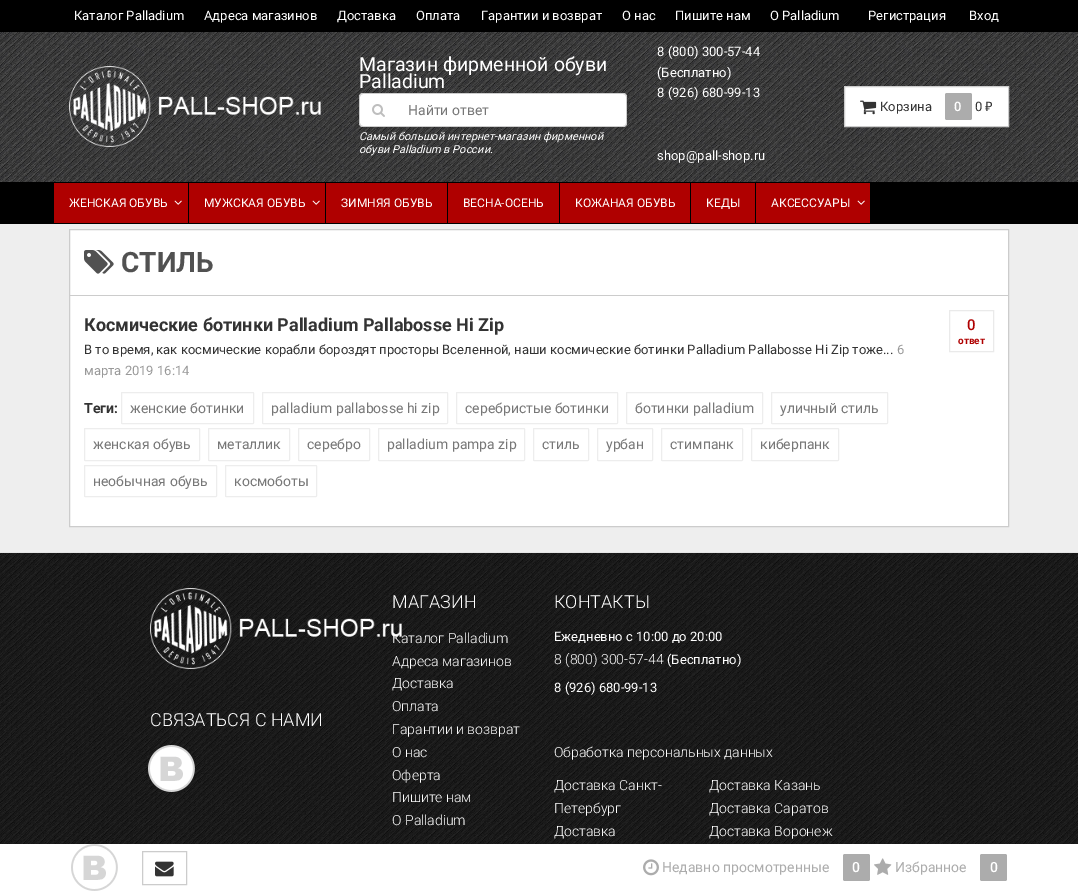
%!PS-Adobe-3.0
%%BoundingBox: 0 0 1078 891
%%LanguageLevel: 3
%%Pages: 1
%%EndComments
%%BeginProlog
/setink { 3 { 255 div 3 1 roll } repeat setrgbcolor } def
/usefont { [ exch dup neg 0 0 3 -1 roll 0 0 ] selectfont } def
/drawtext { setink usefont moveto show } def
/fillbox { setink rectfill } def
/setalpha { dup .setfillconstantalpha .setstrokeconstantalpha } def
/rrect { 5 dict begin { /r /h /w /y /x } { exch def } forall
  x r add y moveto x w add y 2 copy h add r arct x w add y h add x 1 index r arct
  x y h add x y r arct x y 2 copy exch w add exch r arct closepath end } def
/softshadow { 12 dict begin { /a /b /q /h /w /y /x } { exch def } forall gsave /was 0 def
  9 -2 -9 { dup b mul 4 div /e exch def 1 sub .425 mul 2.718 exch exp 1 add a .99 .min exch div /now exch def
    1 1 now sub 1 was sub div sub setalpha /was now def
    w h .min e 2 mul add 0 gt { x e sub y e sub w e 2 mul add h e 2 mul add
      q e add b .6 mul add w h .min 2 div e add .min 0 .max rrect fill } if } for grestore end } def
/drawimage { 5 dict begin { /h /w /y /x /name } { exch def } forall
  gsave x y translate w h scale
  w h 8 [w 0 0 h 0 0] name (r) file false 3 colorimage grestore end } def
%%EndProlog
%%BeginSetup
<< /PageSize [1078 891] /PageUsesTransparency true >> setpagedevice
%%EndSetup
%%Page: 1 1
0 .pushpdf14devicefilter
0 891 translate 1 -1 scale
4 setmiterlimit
0 0 1078 891 255 255 255 fillbox
0 0 1078 32 0 0 0 fillbox
(Каталог Palladium) 74 20 /Roboto-Regular 13 255 255 255 drawtext
(Адреса магазинов) 204 20 /Roboto-Regular 13 255 255 255 drawtext
(Доставка) 337 20 /Roboto-Regular 13 255 255 255 drawtext
(Оплата) 416 20 /Roboto-Regular 13 255 255 255 drawtext
(Гарантии и возврат) 481 20 /Roboto-Regular 13 255 255 255 drawtext
(О нас) 622 20 /Roboto-Regular 13 255 255 255 drawtext
(Пишите нам) 675 20 /Roboto-Regular 13 255 255 255 drawtext
(О Palladium) 770 20 /Roboto-Regular 13 255 255 255 drawtext
(Регистрация) 868 20 /Roboto-Regular 13 255 255 255 drawtext
(Вход) 969 20 /Roboto-Regular 13 255 255 255 drawtext
(assets/img1.rgb) 0 32 1078 150 drawimage
(assets/img2.rgb) 69 66 252 81 drawimage
(Магазин фирменной обуви) 359 71 /Roboto-Regular 19.5 255 255 255 drawtext
(Palladium) 359 88 /Roboto-Regular 19.5 255 255 255 drawtext
396 93 moveto 623 93 lineto 625 93 627 95 627 97 curveto 627 123 lineto 627 125 625 127 623 127 curveto 396 127 lineto closepath fill
204 204 204 setink
396 93 moveto 623 93 lineto 625 93 627 95 627 97 curveto 627 123 lineto 627 125 625 127 623 127 curveto 396 127 lineto closepath 396 94 moveto 623 94 lineto 625 94 626 95 626 97 curveto 626 123 lineto 626 125 625 126 623 126 curveto 396 126 lineto closepath eofill
255 255 255 setink
363 93 moveto 397 93 lineto 397 127 lineto 363 127 lineto 361 127 359 125 359 123 curveto 359 97 lineto 359 95 361 93 363 93 curveto closepath fill
204 204 204 setink
363 93 moveto 397 93 lineto 397 127 lineto 363 127 lineto 361 127 359 125 359 123 curveto 359 97 lineto 359 95 361 93 363 93 curveto closepath 363 94 moveto 397 94 lineto 397 126 lineto 363 126 lineto 361.5 126 360 124.5 360 123 curveto 360 97 lineto 360 95.5 361.5 94 363 94 curveto closepath eofill
(assets/img3.rgb) 372 104 13 13 drawimage
(Найти ответ) 408 115 /Roboto-Regular 14 119 119 119 drawtext
(Самый большой интернет-магазин фирменной) 359 140 /Roboto-Italic 11 255 255 255 drawtext
(обуви Palladium в России.) 359 153 /Roboto-Italic 11 255 255 255 drawtext
(8 \(800\) 300-57-44) 657 56 /Roboto-Regular 13 255 255 255 drawtext
(\(Бесплатно\)) 657 77 /Roboto-Regular 13 255 255 255 drawtext
(8 \(926\) 680-99-13) 657 97 /Roboto-Regular 13 255 255 255 drawtext
(shop@pall-shop.ru) 657 160 /Roboto-Regular 13 255 255 255 drawtext
844.5 86.5 moveto 1008.5 86.5 lineto 1008.5 126.5 lineto 844.5 126.5 lineto closepath gsave fill grestore
203 203 203 setink
stroke
(assets/img4.rgb) 860 100 17 15 drawimage
(Корзина) 880 111 /Roboto-Regular 13 51 51 51 drawtext
172 172 172 setink
945 93 27 27 2 rrect fill
(0) 954 111 /Roboto-Medium 13 255 255 255 drawtext
(0) 975 111 /Roboto-Regular 13 51 51 51 drawtext
(₽) 985 111 /NotoSans-Regular 13 51 51 51 drawtext
0 182 1078 42 0 0 0 fillbox
54 183 134 40 175 0 0 fillbox
(ЖЕНСКАЯ ОБУВЬ) 69 207 /Roboto-Regular 12 255 255 255 drawtext
(assets/img5.rgb) 174 200 8 5 drawimage
189 183 136 40 175 0 0 fillbox
(МУЖСКАЯ ОБУВЬ) 204 207 /Roboto-Regular 12 255 255 255 drawtext
(assets/img5.rgb) 312 200 8 5 drawimage
326 183 121 40 175 0 0 fillbox
(ЗИМНЯЯ ОБУВЬ) 341 207 /Roboto-Regular 12 255 255 255 drawtext
448 183 111 40 175 0 0 fillbox
(ВЕСНА-ОСЕНЬ) 463 207 /Roboto-Regular 12 255 255 255 drawtext
560 183 130 40 175 0 0 fillbox
(КОЖАНАЯ ОБУВЬ) 575 207 /Roboto-Regular 12 255 255 255 drawtext
691 183 64 40 175 0 0 fillbox
(КЕДЫ) 706 207 /Roboto-Regular 12 255 255 255 drawtext
756 183 114 40 175 0 0 fillbox
(АКСЕССУАРЫ) 771 207 /Roboto-Regular 12 255 255 255 drawtext
(assets/img5.rgb) 857 200 8 5 drawimage
0 224 1078 328 238 238 238 fillbox
255 255 255 setink
69.5 229.5 moveto 1008.5 229.5 lineto 1008.5 526.5 lineto 69.5 526.5 lineto closepath gsave fill grestore
204 204 204 setink
stroke
70 295 938 1 204 204 204 fillbox
(assets/img6.rgb) 84 250 30 24 drawimage
(СТИЛЬ) 121 272 /Roboto-Bold 28 81 81 81 drawtext
(Космические ботинки Palladium Pallabosse Hi Zip) 84 331 /Roboto-Bold 18 51 51 51 drawtext
234 234 234 setink
949.5 310.5 44 41 rectstroke
(0) 967 330 /Roboto-Medium 15 175 0 0 drawtext
(ответ) 958 344 /Roboto-Bold 10 175 0 0 drawtext
(В то время, как космические корабли бороздят просторы Вселенной, наши космические ботинки Palladium Pallabosse Hi Zip тоже...) 84 354 /Roboto-Regular 13 51 51 51 drawtext
(6) 897 354 /Roboto-Regular 13 153 153 153 drawtext
(марта 2019 16:14) 84 375 /Roboto-Regular 13 153 153 153 drawtext
(Теги:) 84 413 /Roboto-Bold 14 51 51 51 drawtext
237 237 237 setink
121.5 392.5 132 31 0.5 rrect stroke
(женские ботинки) 130 413 /Roboto-Regular 14 119 119 119 drawtext
237 237 237 setink
262.5 392.5 185 31 0.5 rrect stroke
(palladium pallabosse hi zip) 271 413 /Roboto-Regular 14 119 119 119 drawtext
237 237 237 setink
456.5 392.5 161 31 0.5 rrect stroke
(серебристые ботинки) 465 413 /Roboto-Regular 14 119 119 119 drawtext
237 237 237 setink
626.5 392.5 136 31 0.5 rrect stroke
(ботинки palladium) 635 413 /Roboto-Regular 14 119 119 119 drawtext
237 237 237 setink
771.5 392.5 116 31 0.5 rrect stroke
(уличный стиль) 780 413 /Roboto-Regular 14 119 119 119 drawtext
237 237 237 setink
84.5 428.5 115 32 0.5 rrect stroke
(женская обувь) 93 449 /Roboto-Regular 14 119 119 119 drawtext
237 237 237 setink
208.5 428.5 81 32 0.5 rrect stroke
(металлик) 217 449 /Roboto-Regular 14 119 119 119 drawtext
237 237 237 setink
298.5 428.5 71 32 0.5 rrect stroke
(серебро) 307 449 /Roboto-Regular 14 119 119 119 drawtext
237 237 237 setink
378.5 428.5 146 32 0.5 rrect stroke
(palladium pampa zip) 387 449 /Roboto-Regular 14 119 119 119 drawtext
237 237 237 setink
533.5 428.5 55 32 0.5 rrect stroke
(стиль) 542 449 /Roboto-Regular 14 119 119 119 drawtext
237 237 237 setink
597.5 428.5 55 32 0.5 rrect stroke
(урбан) 606 449 /Roboto-Regular 14 119 119 119 drawtext
237 237 237 setink
661.5 428.5 81 32 0.5 rrect stroke
(стимпанк) 670 449 /Roboto-Regular 14 119 119 119 drawtext
237 237 237 setink
751.5 428.5 87 32 0.5 rrect stroke
(киберпанк) 760 449 /Roboto-Regular 14 119 119 119 drawtext
237 237 237 setink
84.5 465.5 132 31 0.5 rrect stroke
(необычная обувь) 93 486 /Roboto-Regular 14 119 119 119 drawtext
237 237 237 setink
225.5 465.5 91 31 0.5 rrect stroke
(космоботы) 234 486 /Roboto-Regular 14 119 119 119 drawtext
(assets/img7.rgb) 0 553 1078 291 drawimage
0 552 1078 1 229 229 229 fillbox
(assets/img8.rgb) 150 588 252 81 drawimage
(СВЯЗАТЬСЯ С НАМИ) 150 726 /Roboto-Light 18 255 255 255 drawtext
(assets/img9.rgb) 148 745 47 47 drawimage
(МАГАЗИН) 392 608 /Roboto-Light 18 255 255 255 drawtext
(Каталог Palladium) 392 643 /Roboto-Light 14 255 255 255 drawtext
(Адреса магазинов) 392 666 /Roboto-Light 14 255 255 255 drawtext
(Доставка) 392 688 /Roboto-Light 14 255 255 255 drawtext
(Оплата) 392 711 /Roboto-Light 14 255 255 255 drawtext
(Гарантии и возврат) 392 734 /Roboto-Light 14 255 255 255 drawtext
(О нас) 392 757 /Roboto-Light 14 255 255 255 drawtext
(Оферта) 392 780 /Roboto-Light 14 255 255 255 drawtext
(Пишите нам) 392 802 /Roboto-Light 14 255 255 255 drawtext
(О Palladium) 392 825 /Roboto-Light 14 255 255 255 drawtext
(КОНТАКТЫ) 554 608 /Roboto-Light 18 255 255 255 drawtext
(Ежедневно с 10:00 до 20:00) 554 641 /Roboto-Regular 13 255 255 255 drawtext
(8 \(800\) 300-57-44) 554 664 /Roboto-Light 14 255 255 255 drawtext
(\(Бесплатно\)) 667 664 /Roboto-Regular 13 255 255 255 drawtext
(8 \(926\) 680-99-13) 554 692 /Roboto-Regular 13 255 255 255 drawtext
(Обработка персональных данных) 554 757 /Roboto-Light 14 255 255 255 drawtext
(Доставка Санкт-) 554 790 /Roboto-Light 14 255 255 255 drawtext
(Петербург) 554 813 /Roboto-Light 14 255 255 255 drawtext
(Доставка) 554 836 /Roboto-Light 14 255 255 255 drawtext
(Доставка Казань) 709 790 /Roboto-Light 14 255 255 255 drawtext
(Доставка Саратов) 709 813 /Roboto-Light 14 255 255 255 drawtext
(Доставка Воронеж) 709 836 /Roboto-Light 14 255 255 255 drawtext
0 0 0 setink
0 842 1078 47 0 2.5 0.1 softshadow
0 844 1078 47 255 255 255 fillbox
(assets/img10.rgb) 71 844 47 47 drawimage
204 204 204 setink
142.5 851.5 44 33 rectstroke
(assets/img11.rgb) 155 861 19 16 drawimage
(assets/img12.rgb) 643 859 16 17 drawimage
(Недавно просмотренные) 662 872 /Roboto-Regular 14 172 172 172 drawtext
843 854 27 27 2 rrect fill
(0) 852 872 /Roboto-Medium 14 255 255 255 drawtext
(assets/img13.rgb) 874 858 18 17 drawimage
(Избранное) 895 872 /Roboto-Regular 14 172 172 172 drawtext
980 854 27 27 2 rrect fill
(0) 990 872 /Roboto-Medium 14 255 255 255 drawtext
.poppdf14devicefilter showpage
%%EOF
